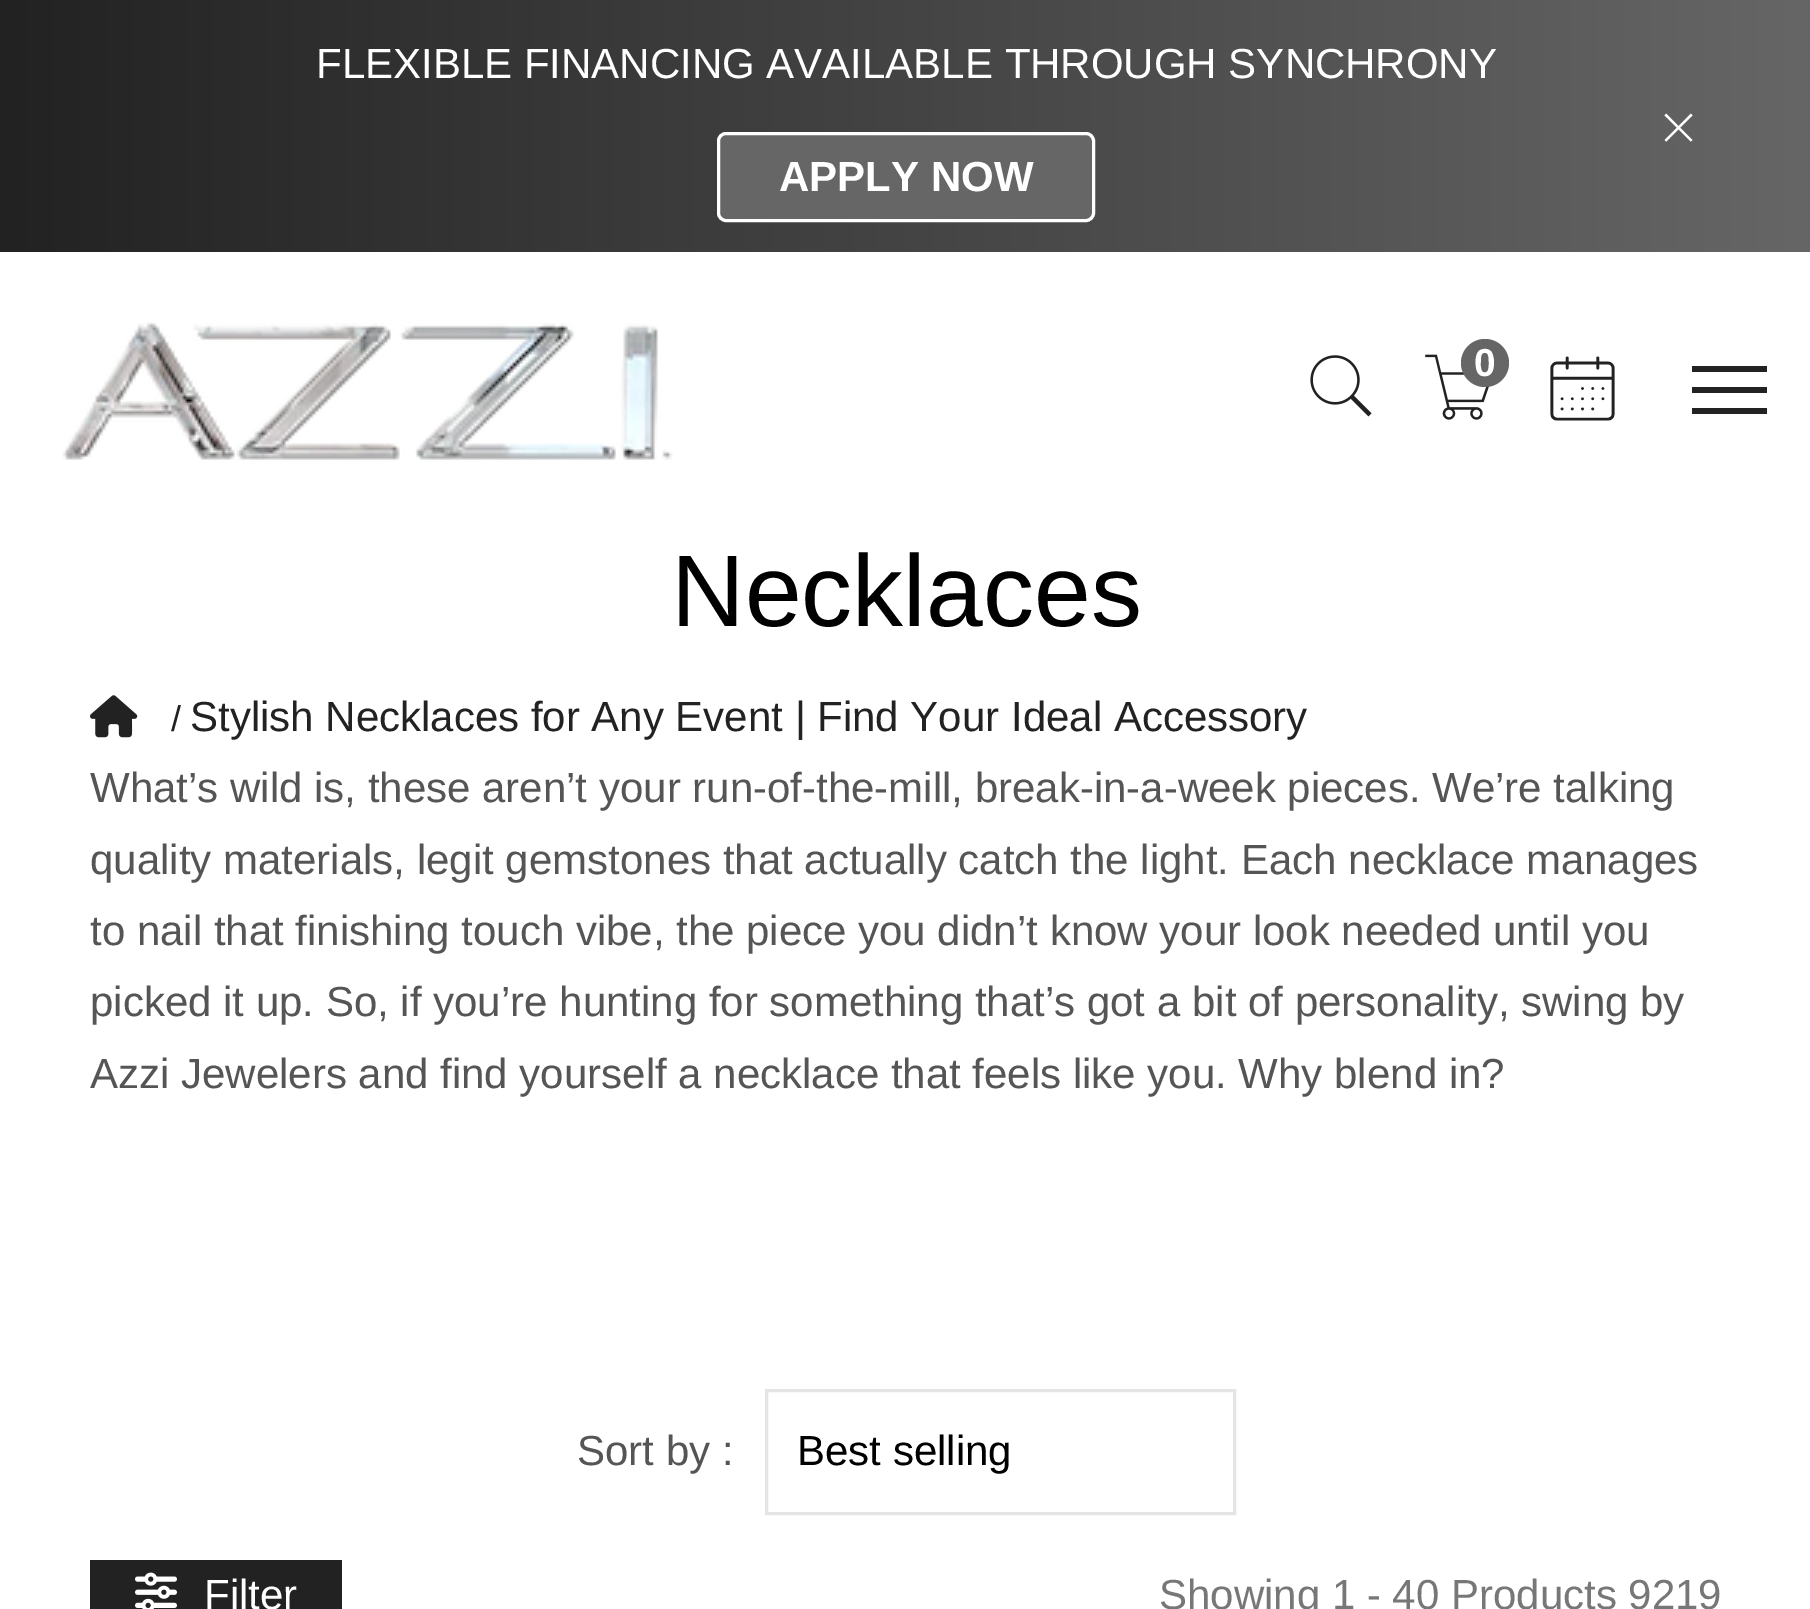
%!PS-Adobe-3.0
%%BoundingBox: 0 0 1810 1609
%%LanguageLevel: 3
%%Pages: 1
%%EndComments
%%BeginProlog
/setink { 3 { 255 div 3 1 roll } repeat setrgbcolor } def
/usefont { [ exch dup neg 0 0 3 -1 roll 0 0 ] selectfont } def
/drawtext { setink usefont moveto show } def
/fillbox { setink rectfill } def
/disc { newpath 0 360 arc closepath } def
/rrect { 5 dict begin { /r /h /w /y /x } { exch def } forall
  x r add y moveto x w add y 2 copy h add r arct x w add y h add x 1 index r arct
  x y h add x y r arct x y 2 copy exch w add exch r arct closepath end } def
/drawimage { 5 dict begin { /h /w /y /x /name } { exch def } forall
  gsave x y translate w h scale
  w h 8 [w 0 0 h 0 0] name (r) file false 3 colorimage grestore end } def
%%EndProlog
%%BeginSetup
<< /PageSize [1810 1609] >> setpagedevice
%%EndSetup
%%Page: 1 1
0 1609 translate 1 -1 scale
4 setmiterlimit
0 0 1810 1609 255 255 255 fillbox
gsave 0 0 moveto 1810 0 lineto 1810 252 lineto 0 252 lineto closepath clip newpath
<< /ShadingType 2 /ColorSpace /DeviceRGB /Coords [0 126 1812 126] /Extend [true true] /Function << /FunctionType 2 /Domain [0 1] /C0 [0.133 0.133 0.133] /C1 [0.4 0.4 0.4] /N 1 >> >> shfill grestore
(FLEXIBLE FINANCING AVAILABLE THROUGH SYNCHRONY) 316 78 /LiberationSans-Regular 42 255 255 255 drawtext
102 102 102 setink
718.5 133.5 375 87 7.5 rrect gsave fill grestore
255 255 255 setink
3 setlinewidth
stroke
(APPLY NOW) 779 191 /LiberationSans-Bold 42 255 255 255 drawtext
(assets/img1.rgb) 1664 113 29 29 drawimage
(assets/img2.rgb) 62 321 611 139 drawimage
(assets/img3.rgb) 1310 355 62 62 drawimage
(assets/img4.rgb) 1425 354 65 66 drawimage
102 102 102 setink
1485 363 24 disc fill
(0) 1474 376 /LiberationSans-Bold 39 255 255 255 drawtext
(assets/img5.rgb) 1550 356 65 65 drawimage
1692 366 75 6 34 34 34 fillbox
1692 387 75 6 34 34 34 fillbox
1692 408 75 6 34 34 34 fillbox
(Necklaces) 671 626 /LiberationSans-Regular 102 0 0 0 drawtext
(assets/img6.rgb) 90 695 48 43 drawimage
(/) 171 731 /LiberationSans-Regular 36 34 34 34 drawtext
(Stylish Necklaces for Any Event | Find Your Ideal Accessory) 190 731 /LiberationSans-Regular 42 34 34 34 drawtext
(What’s wild is, these aren’t your run-of-the-mill, break-in-a-week pieces. We’re talking) 90 802 /LiberationSans-Regular 42 85 85 85 drawtext
(quality materials, legit gemstones that actually catch the light. Each necklace manages) 90 874 /LiberationSans-Regular 42 85 85 85 drawtext
(to nail that finishing touch vibe, the piece you didn’t know your look needed until you) 90 945 /LiberationSans-Regular 42 85 85 85 drawtext
(picked it up. So, if you’re hunting for something that’s got a bit of personality, swing by) 90 1016 /LiberationSans-Regular 42 85 85 85 drawtext
(Azzi Jewelers and find yourself a necklace that feels like you. Why blend in?) 90 1088 /LiberationSans-Regular 42 85 85 85 drawtext
(Sort by :) 577 1465 /LiberationSans-Regular 42 85 85 85 drawtext
229 229 229 setink
766.5 1390.5 468 123 rectstroke
(Best selling) 797 1465 /LiberationSans-Regular 42 0 0 0 drawtext
90 1560 252 49 34 34 34 fillbox
(assets/img7.rgb) 135 1572 42 37 drawimage
(Filter) 204 1609 /LiberationSans-Regular 42 255 255 255 drawtext
(Showing 1 - 40 Products 9219) 1159 1609 /LiberationSans-Regular 42 119 119 119 drawtext
showpage
%%EOF
